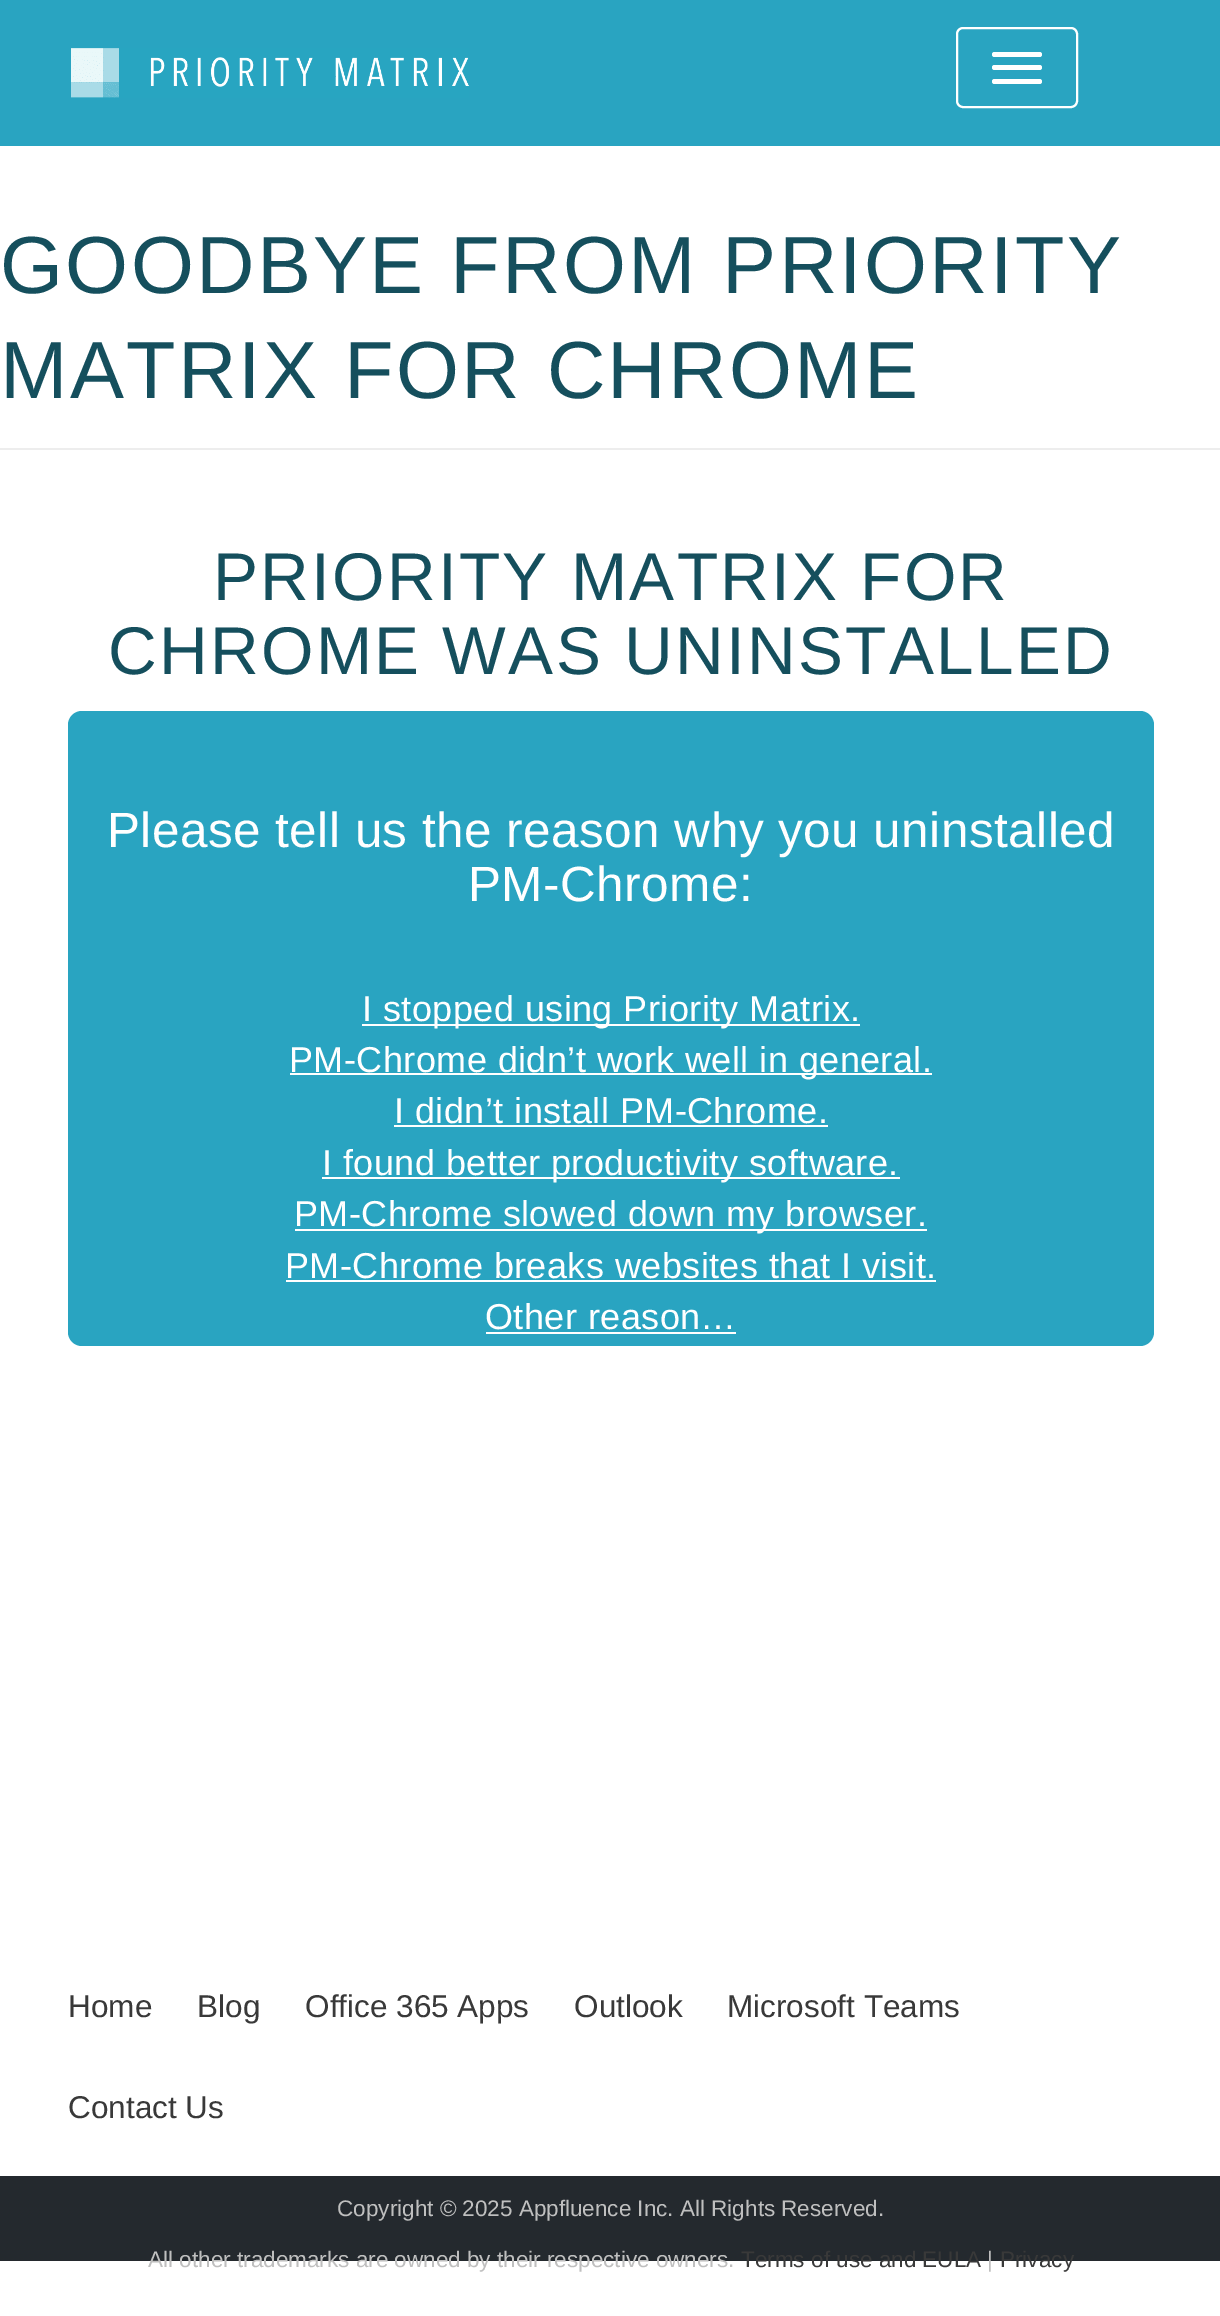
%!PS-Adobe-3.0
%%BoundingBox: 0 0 1220 2316
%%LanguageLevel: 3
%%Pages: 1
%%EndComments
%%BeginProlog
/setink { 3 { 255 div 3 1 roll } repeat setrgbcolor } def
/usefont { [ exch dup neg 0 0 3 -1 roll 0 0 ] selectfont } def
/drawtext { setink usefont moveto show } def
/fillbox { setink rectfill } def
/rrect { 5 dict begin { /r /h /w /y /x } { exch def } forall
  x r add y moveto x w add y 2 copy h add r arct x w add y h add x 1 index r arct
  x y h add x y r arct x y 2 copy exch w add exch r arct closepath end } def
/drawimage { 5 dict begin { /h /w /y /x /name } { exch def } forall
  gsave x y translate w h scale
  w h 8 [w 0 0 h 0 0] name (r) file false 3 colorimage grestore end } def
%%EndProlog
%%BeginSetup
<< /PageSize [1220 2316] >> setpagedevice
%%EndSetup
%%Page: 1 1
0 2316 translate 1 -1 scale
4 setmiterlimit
0 0 1220 2316 255 255 255 fillbox
0 0 1220 146 41 164 193 fillbox
(assets/img1.rgb) 71 48 398 50 drawimage
255 255 255 setink
2 setlinewidth
957 28 120 79 6 rrect stroke
992 52 50 5 2.5 rrect fill
992 65 50 5 2.5 rrect fill
992 79 50 5 2.5 rrect fill
0 448 1220 2 237 237 237 fillbox
/LiberationSans-Regular 81 usefont
21 79 93 setink
0 293 moveto 2.25 0 (GOODBYE FROM PRIORITY) ashow
0 398 moveto 2.25 0 (MATRIX FOR CHROME) ashow
/LiberationSans-Regular 67.5 usefont
213 600 moveto 2.25 0 (PRIORITY MATRIX FOR) ashow
108 674 moveto 2.25 0 (CHROME WAS UNINSTALLED) ashow
41 164 193 setink
68 711 1086 635 14 rrect fill
/LiberationSans-Regular 49.5 usefont
255 255 255 setink
107 847 moveto 0.45 0 (Please tell us the reason why you uninstalled) ashow
468 901 moveto 0.45 0 (PM-Chrome:) ashow
362 1024 498 2 255 255 255 fillbox
/LiberationSans-Regular 36 usefont
362 1021 moveto 0.45 0 (I stopped using Priority Matrix.) ashow
290 1073 642 2 255 255 255 fillbox
289 1072 moveto 0.45 0 (PM-Chrome didn’t work well in general.) ashow
394 1123 moveto 0.45 0 (I didn’t install PM-Chrome.) ashow
394 1125 434 2 255 255 255 fillbox
322 1177 578 2 255 255 255 fillbox
322 1175 moveto 0.45 0 (I found better productivity software.) ashow
295 1229 632 2 255 255 255 fillbox
294 1226 moveto 0.45 0 (PM-Chrome slowed down my browser.) ashow
285 1278 moveto 0.45 0 (PM-Chrome breaks websites that I visit.) ashow
286 1280 650 2 255 255 255 fillbox
485 1329 moveto 0.45 0 (Other reason…) ashow
486 1332 250 2 255 255 255 fillbox
(Home) 68 2017 /LiberationSans-Regular 31.5 57 57 57 drawtext
(Blog) 197 2017 /LiberationSans-Regular 31.5 57 57 57 drawtext
(Office 365 Apps) 305 2017 /LiberationSans-Regular 31.5 57 57 57 drawtext
(Outlook) 574 2017 /LiberationSans-Regular 31.5 57 57 57 drawtext
(Microsoft Teams) 727 2017 /LiberationSans-Regular 31.5 57 57 57 drawtext
(Contact Us) 68 2118 /LiberationSans-Regular 31.5 57 57 57 drawtext
0 2176 1220 85 36 41 46 fillbox
(Copyright © 2025 Appfluence Inc. All Rights Reserved.) 337 2216 /LiberationSans-Regular 22.5 191 191 191 drawtext
(All other trademarks are owned by their respective owners.) 148 2267 /LiberationSans-Regular 22.5 191 191 191 drawtext
(Terms of use and EULA) 741 2267 /LiberationSans-Regular 22.5 57 57 57 drawtext
(|) 987 2267 /LiberationSans-Regular 22.5 191 191 191 drawtext
(Privacy) 1000 2267 /LiberationSans-Regular 22.5 57 57 57 drawtext
showpage
%%EOF
